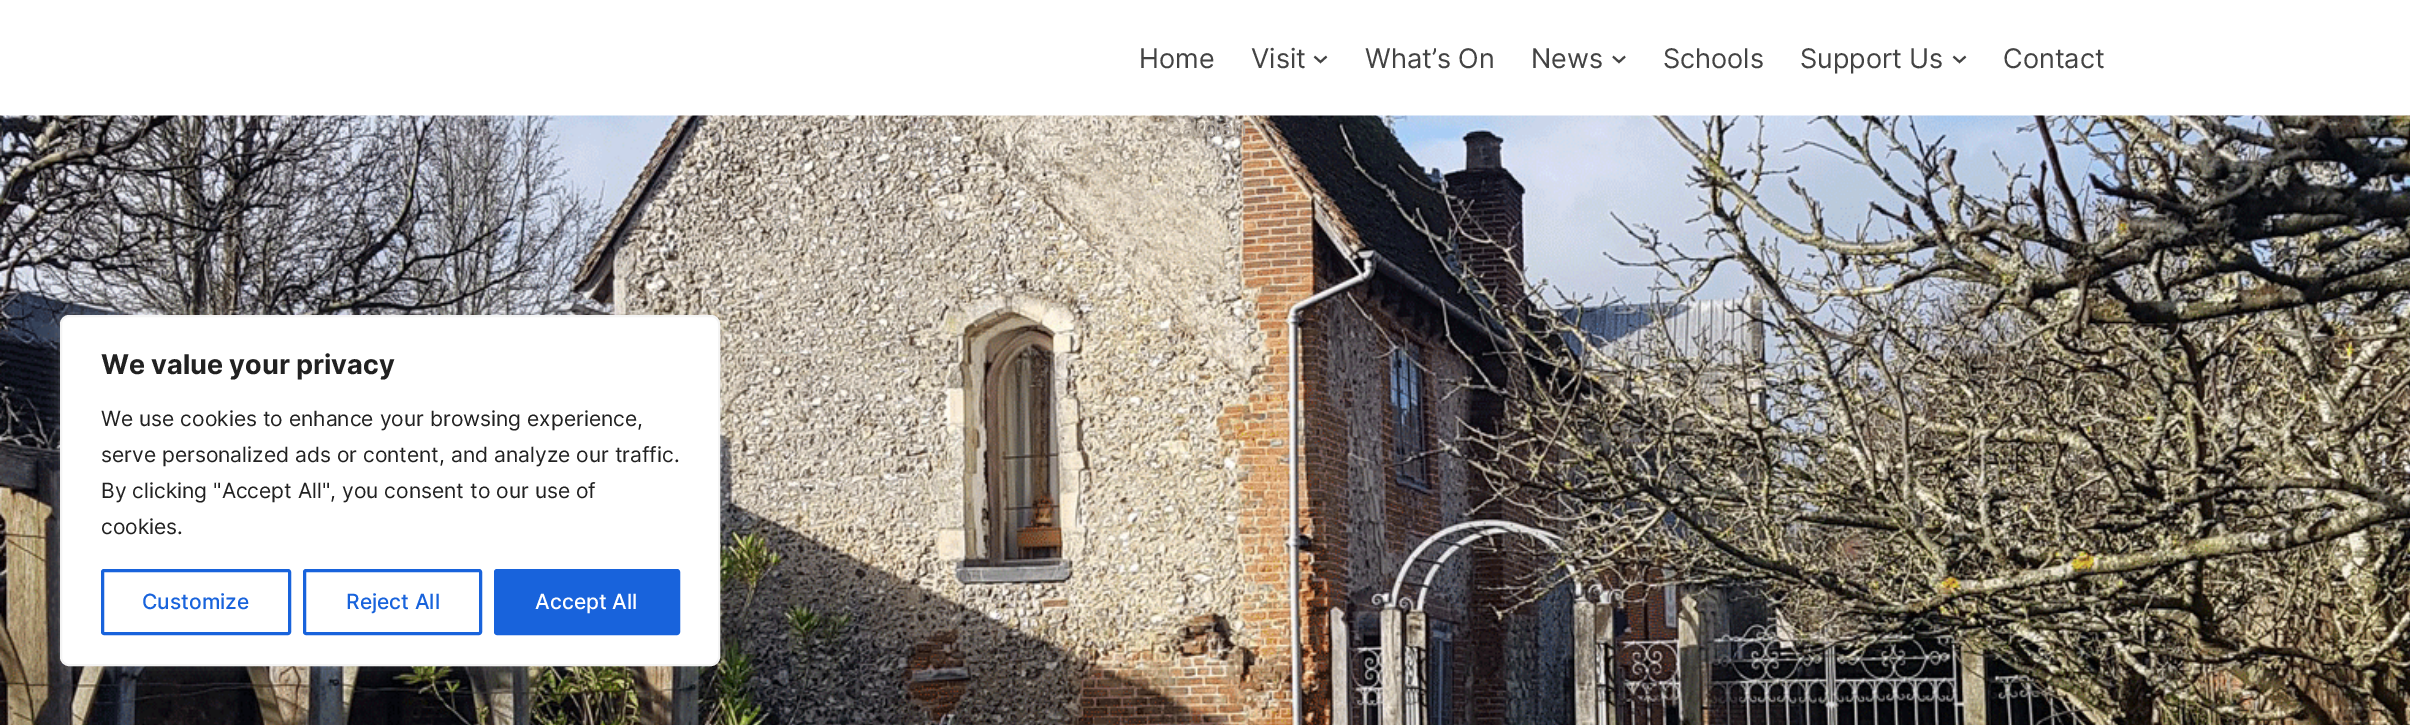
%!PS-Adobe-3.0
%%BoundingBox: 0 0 2410 725
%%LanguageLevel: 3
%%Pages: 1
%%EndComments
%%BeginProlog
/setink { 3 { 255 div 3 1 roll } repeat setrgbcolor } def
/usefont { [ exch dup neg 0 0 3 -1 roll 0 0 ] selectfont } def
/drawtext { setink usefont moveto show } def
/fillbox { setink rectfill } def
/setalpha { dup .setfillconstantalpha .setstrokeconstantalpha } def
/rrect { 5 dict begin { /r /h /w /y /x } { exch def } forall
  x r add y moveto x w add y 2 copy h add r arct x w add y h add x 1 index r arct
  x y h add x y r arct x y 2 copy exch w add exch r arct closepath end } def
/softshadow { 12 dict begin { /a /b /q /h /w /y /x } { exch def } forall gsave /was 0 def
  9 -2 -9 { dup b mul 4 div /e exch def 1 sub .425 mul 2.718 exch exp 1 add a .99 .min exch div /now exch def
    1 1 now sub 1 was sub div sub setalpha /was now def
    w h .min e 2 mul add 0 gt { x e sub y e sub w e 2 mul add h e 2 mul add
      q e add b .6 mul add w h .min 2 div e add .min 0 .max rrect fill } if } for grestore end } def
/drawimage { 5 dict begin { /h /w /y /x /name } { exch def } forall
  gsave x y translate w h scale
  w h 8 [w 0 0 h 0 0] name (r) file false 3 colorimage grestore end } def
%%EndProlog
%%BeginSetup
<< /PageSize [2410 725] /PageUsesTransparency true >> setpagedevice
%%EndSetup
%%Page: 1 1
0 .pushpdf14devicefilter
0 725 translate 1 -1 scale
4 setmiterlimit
0 0 2410 725 255 255 255 fillbox
(Home) 1139 68 /Inter-Regular 27 67 67 67 drawtext
(Visit) 1251 68 /Inter-Regular 27 67 67 67 drawtext
2 setlinewidth
1314.5 56.5 moveto 1320.5 62 lineto 1326.5 56.5 lineto stroke
(What’s On) 1365 68 /Inter-Regular 27 67 67 67 drawtext
(News) 1531 68 /Inter-Regular 27 67 67 67 drawtext
1613 56.5 moveto 1619 62 lineto 1625 56.5 lineto stroke
(Schools) 1663 68 /Inter-Regular 27 67 67 67 drawtext
(Support Us) 1800 68 /Inter-Regular 27 67 67 67 drawtext
1953.5 56.5 moveto 1959.5 62 lineto 1965.5 56.5 lineto stroke
(Contact) 2003 68 /Inter-Regular 27 67 67 67 drawtext
(assets/img1.rgb) 0 115 2410 610 drawimage
(Garden) 1164 136 /Inter-Regular 24 178 168 157 drawtext
172 171 171 setink
60 314 660 351 9 7.5 0.3 softshadow
255 255 255 setink
61 316 658 349 8 rrect gsave fill grestore
244 244 244 setink
stroke
(We value your privacy) 101 374 /Inter-Bold 27 33 33 33 drawtext
(We use cookies to enhance your browsing experience,) 101 426 /Inter-Regular 21 33 33 33 drawtext
(serve personalized ads or content, and analyze our traffic.) 101 462 /Inter-Regular 21 33 33 33 drawtext
(By clicking "Accept All", you consent to our use of) 101 498 /Inter-Regular 21 33 33 33 drawtext
(cookies.) 101 534 /Inter-Regular 21 33 33 33 drawtext
24 99 220 setink
3 setlinewidth
102.5 570.5 187 63 1.5 rrect stroke
(Customize) 142 609 /Inter-Medium 21 24 99 220 drawtext
304.5 570.5 176 63 1.5 rrect stroke
(Reject All) 346 609 /Inter-Medium 21 24 99 220 drawtext
495.5 570.5 183 63 1.5 rrect gsave fill grestore
stroke
(Accept All) 535 609 /Inter-Medium 21 255 255 255 drawtext
.poppdf14devicefilter showpage
%%EOF
